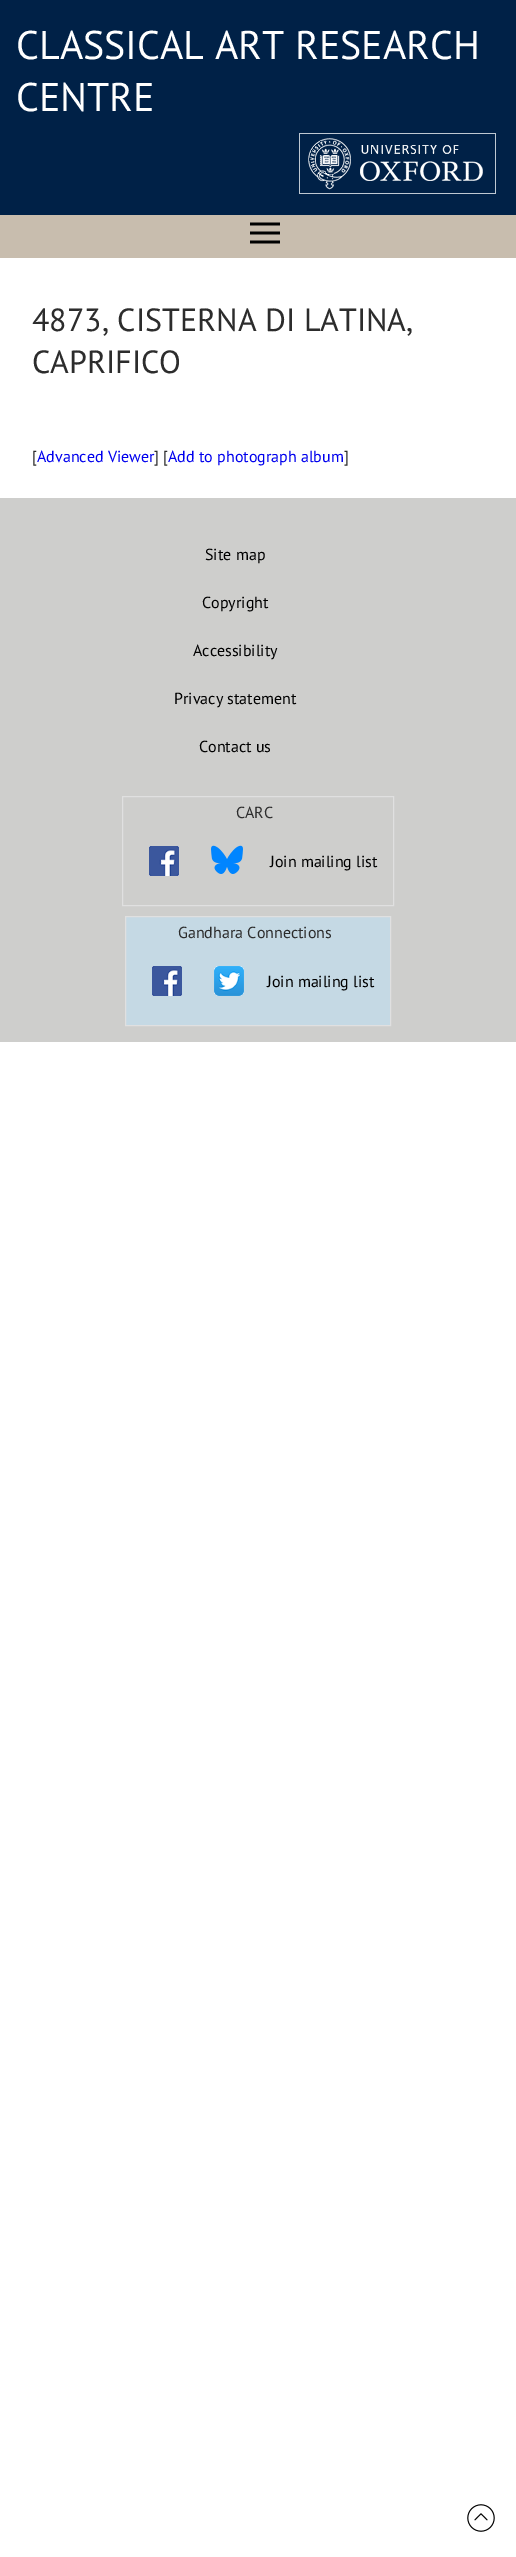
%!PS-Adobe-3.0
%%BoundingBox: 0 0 516 2557
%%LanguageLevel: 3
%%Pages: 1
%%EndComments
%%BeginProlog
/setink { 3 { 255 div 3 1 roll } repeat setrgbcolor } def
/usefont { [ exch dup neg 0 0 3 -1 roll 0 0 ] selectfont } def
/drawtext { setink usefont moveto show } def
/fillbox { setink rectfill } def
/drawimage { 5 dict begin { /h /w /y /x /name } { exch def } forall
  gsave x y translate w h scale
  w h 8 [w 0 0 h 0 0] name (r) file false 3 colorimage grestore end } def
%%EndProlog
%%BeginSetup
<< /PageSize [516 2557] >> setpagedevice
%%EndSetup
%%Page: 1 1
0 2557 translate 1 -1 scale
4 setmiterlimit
0 0 516 2557 255 255 255 fillbox
0 0 516 215 0 33 71 fillbox
(CLASSICAL ART RESEARCH) 16 59 /PTSans-Regular 40 255 255 255 drawtext
(CENTRE) 16 111 /PTSans-Regular 40 255 255 255 drawtext
(assets/img1.rgb) 299 133 197 61 drawimage
0 215 516 43 200 189 174 fillbox
(assets/img2.rgb) 250 222 30 22 drawimage
(4873, CISTERNA DI LATINA,) 32 331 /PTSans-Regular 32 44 44 44 drawtext
(CAPRIFICO) 32 373 /PTSans-Regular 32 44 44 44 drawtext
([) 32 462 /PTSans-Regular 16 44 44 44 drawtext
(Advanced Viewer) 37 462 /PTSans-Regular 16 0 0 238 drawtext
(] [) 154 462 /PTSans-Regular 16 44 44 44 drawtext
(Add to photograph album) 168 462 /PTSans-Regular 16 0 0 238 drawtext
(]) 344 462 /PTSans-Regular 16 44 44 44 drawtext
0 498 516 544 206 206 204 fillbox
(Site map) 205 560 /PTSans-Regular 16 0 0 0 drawtext
(Copyright) 202 608 /PTSans-Regular 16 0 0 0 drawtext
(Accessibility) 193 656 /PTSans-Regular 16 0 0 0 drawtext
(Privacy statement) 174 704 /PTSans-Regular 16 0 0 0 drawtext
(Contact us) 199 752 /PTSans-Regular 16 0 0 0 drawtext
224 224 224 setink
122.5 796.5 271 109 rectstroke
(CARC) 236 818 /PTSans-Regular 16 44 44 44 drawtext
(assets/img3.rgb) 149 846 30 30 drawimage
(assets/img4.rgb) 211 845 32 29 drawimage
(Join mailing list) 270 867 /PTSans-Regular 16 0 0 0 drawtext
197 217 228 setink
125.5 916.5 moveto 390.5 916.5 lineto 390.5 1025.5 lineto 125.5 1025.5 lineto closepath gsave fill grestore
224 224 224 setink
stroke
(Gandhara Connections) 178 938 /PTSans-Regular 16 44 44 44 drawtext
(assets/img3.rgb) 152 966 30 30 drawimage
(assets/img5.rgb) 214 966 30 30 drawimage
(Join mailing list) 267 987 /PTSans-Regular 16 0 0 0 drawtext
(assets/img6.rgb) 467 2504 28 28 drawimage
showpage
%%EOF
